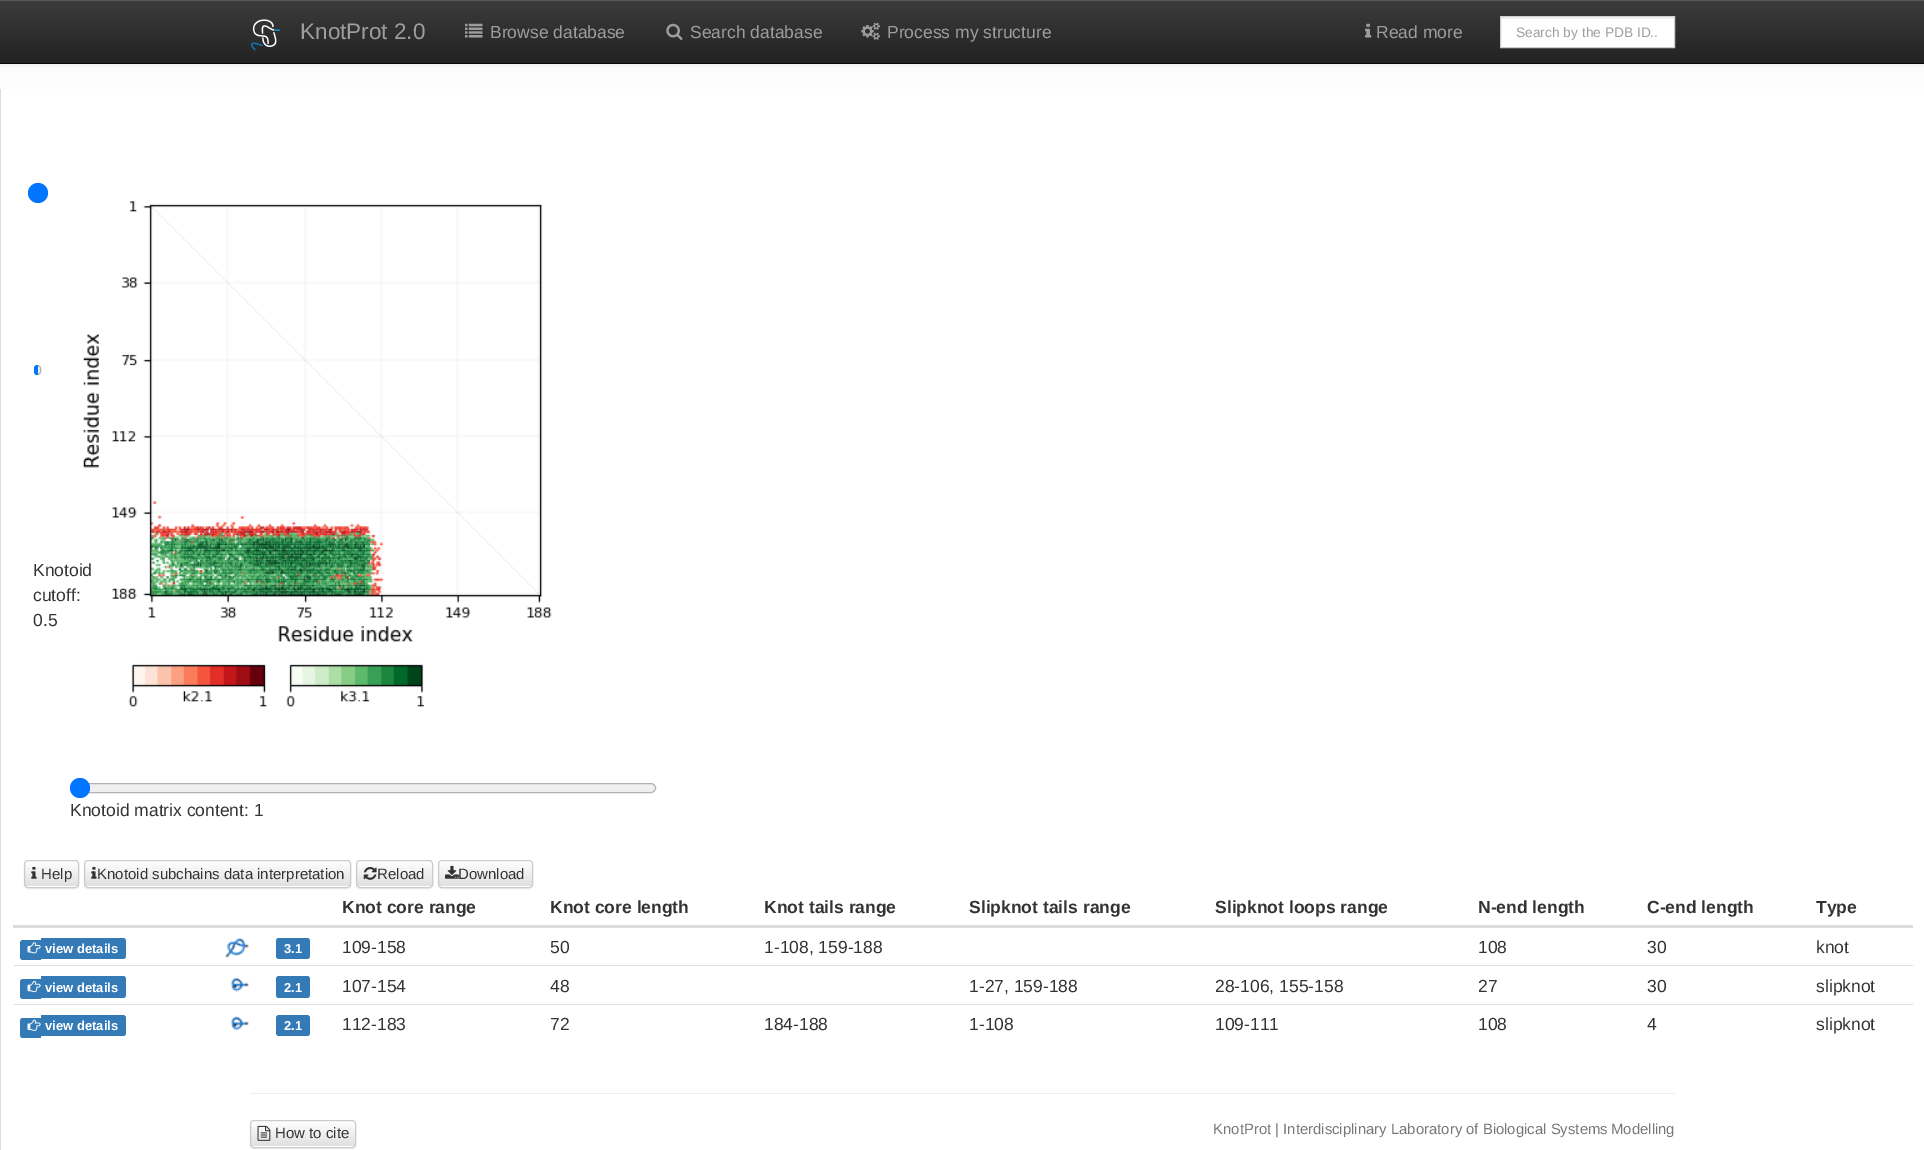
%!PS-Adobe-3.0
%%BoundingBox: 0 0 1924 1150
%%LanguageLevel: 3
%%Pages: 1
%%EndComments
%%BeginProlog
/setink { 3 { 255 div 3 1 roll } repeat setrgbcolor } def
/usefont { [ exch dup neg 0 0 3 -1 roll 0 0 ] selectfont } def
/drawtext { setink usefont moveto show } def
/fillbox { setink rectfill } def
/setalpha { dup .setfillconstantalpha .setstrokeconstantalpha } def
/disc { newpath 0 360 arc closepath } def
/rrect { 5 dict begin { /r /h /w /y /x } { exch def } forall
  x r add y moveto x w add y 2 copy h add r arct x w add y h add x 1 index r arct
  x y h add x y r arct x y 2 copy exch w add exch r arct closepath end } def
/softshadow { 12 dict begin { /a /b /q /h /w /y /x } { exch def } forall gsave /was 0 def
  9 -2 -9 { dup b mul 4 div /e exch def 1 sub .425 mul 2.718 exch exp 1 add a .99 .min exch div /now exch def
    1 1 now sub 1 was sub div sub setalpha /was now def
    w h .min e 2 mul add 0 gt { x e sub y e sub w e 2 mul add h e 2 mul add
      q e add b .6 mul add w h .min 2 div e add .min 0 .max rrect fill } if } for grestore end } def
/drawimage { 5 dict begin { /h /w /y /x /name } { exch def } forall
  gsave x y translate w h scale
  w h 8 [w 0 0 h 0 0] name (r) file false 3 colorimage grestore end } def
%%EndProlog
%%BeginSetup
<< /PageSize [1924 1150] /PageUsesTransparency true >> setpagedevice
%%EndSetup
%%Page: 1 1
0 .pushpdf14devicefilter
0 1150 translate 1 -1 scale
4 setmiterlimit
0 0 1924 1150 252 252 252 fillbox
0 0 0 setink
0 1 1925 64 0 3 0.07 softshadow
gsave 0 1 moveto 1924 1 lineto 1924 63 lineto 0 63 lineto closepath clip newpath
<< /ShadingType 2 /ColorSpace /DeviceRGB /Coords [963 0 963 63] /Extend [true true] /Function << /FunctionType 2 /Domain [0 1] /C0 [0.235 0.235 0.235] /C1 [0.133 0.133 0.133] /N 1 >> >> shfill grestore
0 0 1924 1 89 89 89 fillbox
0 63 1924 1 8 8 8 fillbox
(assets/img1.rgb) 250 19 31 32 drawimage
(KnotProt 2.0) 300 39 /LiberationSans-Regular 22.5 157 157 157 drawtext
(assets/img2.rgb) 465 23 18 15 drawimage
(Browse database) 490 38 /LiberationSans-Regular 17.5 157 157 157 drawtext
(assets/img3.rgb) 666 23 17 17 drawimage
(Search database) 690 38 /LiberationSans-Regular 17.5 157 157 157 drawtext
(assets/img4.rgb) 861 22 19 18 drawimage
(Process my structure) 887 38 /LiberationSans-Regular 17.5 157 157 157 drawtext
(assets/img5.rgb) 1365 23 7 15 drawimage
(Read more) 1376 38 /LiberationSans-Regular 17.5 157 157 157 drawtext
1501 17 173 30 255 255 255 fillbox
1501 18 173 1 236 236 236 fillbox
204 204 204 setink
1500.5 16.5 174 31 rectstroke
(Search by the PDB ID..) 1516 37 /LiberationSans-Regular 13.75 157 157 157 drawtext
1 89 1923 1061 255 255 255 fillbox
0 89 1 1061 221 221 221 fillbox
239 239 239 setink
34.5 365.5 6 9 3 rrect gsave fill grestore
178 178 178 setink
stroke
gsave
34 365 7 10 3.5 rrect clip newpath
0 117 255 setink
37.5 365 moveto 38 365 lineto 38 375 lineto 37.5 375 lineto 35.5 375 34 373.5 34 371.5 curveto 34 368.5 lineto 34 366.5 35.5 365 37.5 365 curveto closepath fill
grestore
0 117 255 setink
38 193 10 disc fill
(Knotoid) 33 576 /LiberationSans-Regular 17.5 51 51 51 drawtext
(cutoff:) 33 601 /LiberationSans-Regular 17.5 51 51 51 drawtext
(0.5) 33 626 /LiberationSans-Regular 17.5 51 51 51 drawtext
(assets/img6.rgb) 83 201 469 506 drawimage
239 239 239 setink
71.5 783.5 584 9 4.5 rrect gsave fill grestore
178 178 178 setink
stroke
0 117 255 setink
80 788 10 disc fill
(Knotoid matrix content: 1) 70 816 /LiberationSans-Regular 17.5 51 51 51 drawtext
0 0 0 setink
24 861 55 28 4 0.5 0.07 softshadow
255 255 255 setink
24 860 55 28 4 rrect fill
gsave
24 860 55 28 4 rrect clip newpath
gsave 24 861 moveto 79 861 lineto 79 886 lineto 24 886 lineto closepath clip newpath
<< /ShadingType 2 /ColorSpace /DeviceRGB /Coords [51 861 51 886] /Extend [true true] /Function << /FunctionType 2 /Domain [0 1] /C0 [1 1 1] /C1 [0.878 0.878 0.878] /N 1 >> >> shfill grestore
grestore
204 204 204 setink
24.5 860.5 54 27 3.5 rrect stroke
(assets/img7.rgb) 31 866 6 13 drawimage
(Help) 41 879 /LiberationSans-Regular 15 51 51 51 drawtext
0 0 0 setink
84 861 267 28 4 0.5 0.07 softshadow
255 255 255 setink
84 860 267 28 4 rrect fill
gsave
84 860 267 28 4 rrect clip newpath
gsave 84 861 moveto 351 861 lineto 351 886 lineto 84 886 lineto closepath clip newpath
<< /ShadingType 2 /ColorSpace /DeviceRGB /Coords [218 861 218 886] /Extend [true true] /Function << /FunctionType 2 /Domain [0 1] /C0 [1 1 1] /C1 [0.878 0.878 0.878] /N 1 >> >> shfill grestore
grestore
204 204 204 setink
84.5 860.5 266 27 3.5 rrect stroke
(assets/img7.rgb) 91 866 6 13 drawimage
(Knotoid subchains data interpretation) 97 879 /LiberationSans-Regular 15 51 51 51 drawtext
0 0 0 setink
356 861 77 28 4 0.5 0.07 softshadow
255 255 255 setink
356 860 77 28 4 rrect fill
gsave
356 860 77 28 4 rrect clip newpath
gsave 356 861 moveto 433 861 lineto 433 886 lineto 356 886 lineto closepath clip newpath
<< /ShadingType 2 /ColorSpace /DeviceRGB /Coords [394 861 394 886] /Extend [true true] /Function << /FunctionType 2 /Domain [0 1] /C0 [1 1 1] /C1 [0.878 0.878 0.878] /N 1 >> >> shfill grestore
grestore
204 204 204 setink
356.5 860.5 76 27 3.5 rrect stroke
(assets/img8.rgb) 363 867 14 13 drawimage
(Reload) 377 879 /LiberationSans-Regular 15 51 51 51 drawtext
0 0 0 setink
438 861 95 28 4 0.5 0.07 softshadow
255 255 255 setink
438 860 95 28 4 rrect fill
gsave
438 860 95 28 4 rrect clip newpath
gsave 438 861 moveto 533 861 lineto 533 886 lineto 438 886 lineto closepath clip newpath
<< /ShadingType 2 /ColorSpace /DeviceRGB /Coords [485 861 485 886] /Extend [true true] /Function << /FunctionType 2 /Domain [0 1] /C0 [1 1 1] /C1 [0.878 0.878 0.878] /N 1 >> >> shfill grestore
grestore
204 204 204 setink
438.5 860.5 94 27 3.5 rrect stroke
(assets/img9.rgb) 445 865 14 14 drawimage
(Download) 458 879 /LiberationSans-Regular 15 51 51 51 drawtext
(Knot core range) 342 913 /LiberationSans-Bold 17.5 51 51 51 drawtext
(Knot core length) 550 913 /LiberationSans-Bold 17.5 51 51 51 drawtext
(Knot tails range) 764 913 /LiberationSans-Bold 17.5 51 51 51 drawtext
(Slipknot tails range) 969 913 /LiberationSans-Bold 17.5 51 51 51 drawtext
(Slipknot loops range) 1215 913 /LiberationSans-Bold 17.5 51 51 51 drawtext
(N-end length) 1478 913 /LiberationSans-Bold 17.5 51 51 51 drawtext
(C-end length) 1647 913 /LiberationSans-Bold 17.5 51 51 51 drawtext
13 925 1900 3 221 221 221 fillbox
(Type) 1816 913 /LiberationSans-Bold 17.5 51 51 51 drawtext
51 122 183 setink
23 940 moveto 41 940 lineto 41 960 lineto 23 960 lineto 21.5 960 20 958.5 20 957 curveto 20 943 lineto 20 941.5 21.5 940 23 940 curveto closepath fill
41 938 moveto 123 938 lineto 124.5 938 126 939.5 126 941 curveto 126 956 lineto 126 957.5 124.5 959 123 959 curveto 41 959 lineto closepath fill
(assets/img10.rgb) 27 942 14 12 drawimage
(view details) 45 953 /LiberationSans-Bold 13 255 255 255 drawtext
(assets/img11.rgb) 225 937 24 21 drawimage
51 122 183 setink
276 938 34 21 3 rrect fill
(3.1) 284 953 /LiberationSans-Bold 13 255 255 255 drawtext
(109-158) 342 953 /LiberationSans-Regular 17.5 51 51 51 drawtext
(50) 550 953 /LiberationSans-Regular 17.5 51 51 51 drawtext
(1-108, 159-188) 764 953 /LiberationSans-Regular 17.5 51 51 51 drawtext
(108) 1478 953 /LiberationSans-Regular 17.5 51 51 51 drawtext
(30) 1647 953 /LiberationSans-Regular 17.5 51 51 51 drawtext
(knot) 1816 953 /LiberationSans-Regular 17.5 51 51 51 drawtext
51 122 183 setink
23 979 moveto 41 979 lineto 41 999 lineto 23 999 lineto 21.5 999 20 997.5 20 996 curveto 20 982 lineto 20 980.5 21.5 979 23 979 curveto closepath fill
41 976 moveto 123 976 lineto 124.5 976 126 977.5 126 979 curveto 126 995 lineto 126 996.5 124.5 998 123 998 curveto 41 998 lineto closepath fill
(assets/img12.rgb) 27 981 14 12 drawimage
(view details) 45 992 /LiberationSans-Bold 13 255 255 255 drawtext
(assets/img13.rgb) 231 977 18 15 drawimage
51 122 183 setink
276 976 34 22 3 rrect fill
(2.1) 284 992 /LiberationSans-Bold 13 255 255 255 drawtext
(107-154) 342 992 /LiberationSans-Regular 17.5 51 51 51 drawtext
(48) 550 992 /LiberationSans-Regular 17.5 51 51 51 drawtext
(1-27, 159-188) 969 992 /LiberationSans-Regular 17.5 51 51 51 drawtext
(28-106, 155-158) 1215 992 /LiberationSans-Regular 17.5 51 51 51 drawtext
(27) 1478 992 /LiberationSans-Regular 17.5 51 51 51 drawtext
(30) 1647 992 /LiberationSans-Regular 17.5 51 51 51 drawtext
14 965 1899 1 221 221 221 fillbox
(slipknot) 1816 992 /LiberationSans-Regular 17.5 51 51 51 drawtext
51 122 183 setink
23 1018 moveto 41 1018 lineto 41 1038 lineto 23 1038 lineto 21.5 1038 20 1036.5 20 1035 curveto 20 1021 lineto 20 1019.5 21.5 1018 23 1018 curveto closepath fill
41 1015 moveto 123 1015 lineto 124.5 1015 126 1016.5 126 1018 curveto 126 1033 lineto 126 1034.5 124.5 1036 123 1036 curveto 41 1036 lineto closepath fill
(assets/img14.rgb) 27 1019 14 12 drawimage
(view details) 45 1030 /LiberationSans-Bold 13 255 255 255 drawtext
(assets/img15.rgb) 231 1016 18 15 drawimage
51 122 183 setink
276 1015 34 21 3 rrect fill
(2.1) 284 1030 /LiberationSans-Bold 13 255 255 255 drawtext
(112-183) 342 1030 /LiberationSans-Regular 17.5 51 51 51 drawtext
(72) 550 1030 /LiberationSans-Regular 17.5 51 51 51 drawtext
(184-188) 764 1030 /LiberationSans-Regular 17.5 51 51 51 drawtext
(1-108) 969 1030 /LiberationSans-Regular 17.5 51 51 51 drawtext
(109-111) 1215 1030 /LiberationSans-Regular 17.5 51 51 51 drawtext
(108) 1478 1030 /LiberationSans-Regular 17.5 51 51 51 drawtext
(4) 1647 1030 /LiberationSans-Regular 17.5 51 51 51 drawtext
14 1004 1899 1 221 221 221 fillbox
(slipknot) 1816 1030 /LiberationSans-Regular 17.5 51 51 51 drawtext
250 1093 1425 1 238 238 238 fillbox
0 0 0 setink
250 1121 106 28 4 0.5 0.07 softshadow
255 255 255 setink
250 1120 106 28 4 rrect fill
gsave
250 1120 106 28 4 rrect clip newpath
gsave 250 1121 moveto 356 1121 lineto 356 1146 lineto 250 1146 lineto closepath clip newpath
<< /ShadingType 2 /ColorSpace /DeviceRGB /Coords [303 1121 303 1146] /Extend [true true] /Function << /FunctionType 2 /Domain [0 1] /C0 [1 1 1] /C1 [0.878 0.878 0.878] /N 1 >> >> shfill grestore
grestore
204 204 204 setink
250.5 1120.5 105 27 3.5 rrect stroke
(assets/img16.rgb) 257 1125 14 16 drawimage
(How to cite) 275 1138 /LiberationSans-Regular 15 51 51 51 drawtext
(KnotProt | Interdisciplinary Laboratory of Biological Systems) 1213 1134 /LiberationSans-Regular 14.9 119 119 119 drawtext
(Modelling) 1611 1134 /LiberationSans-Regular 14.9 119 119 119 drawtext
.poppdf14devicefilter showpage
%%EOF
